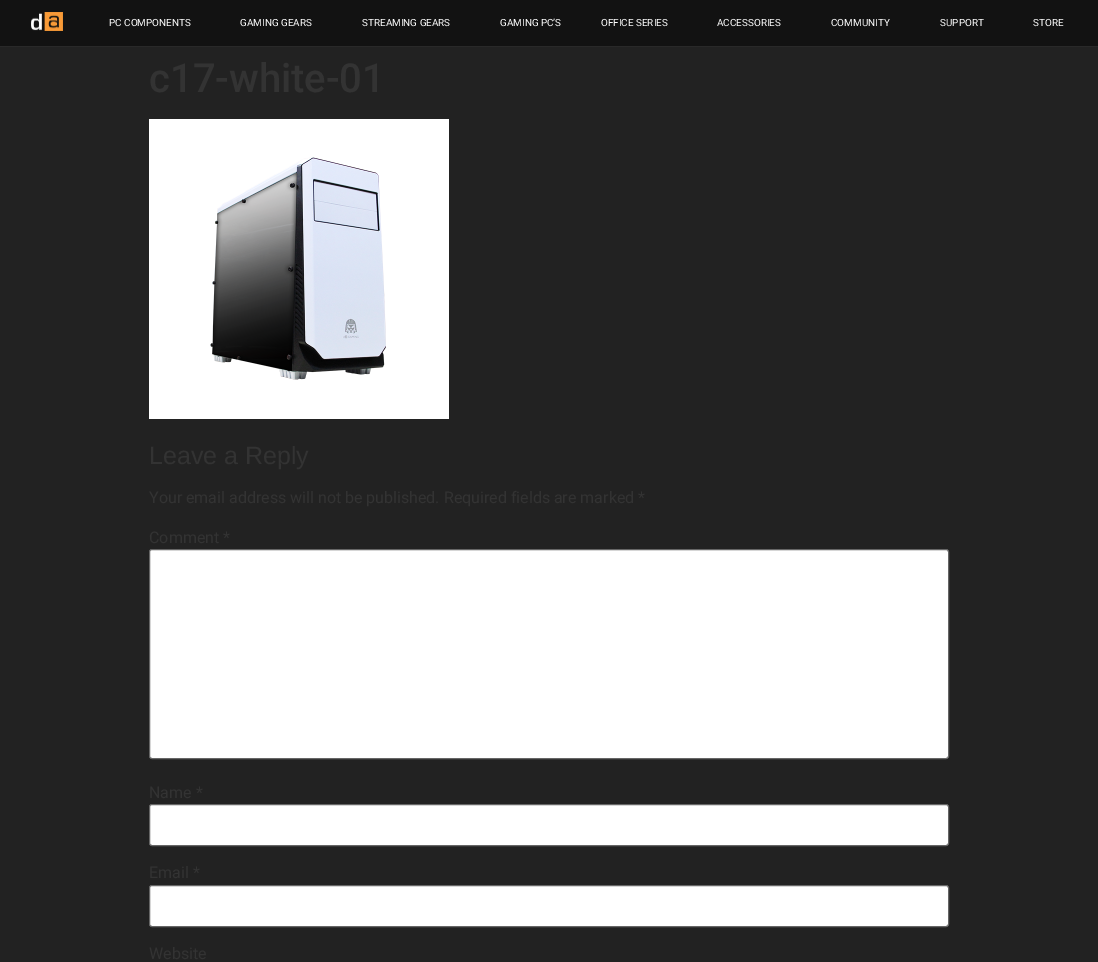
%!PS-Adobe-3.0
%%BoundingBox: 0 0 1098 962
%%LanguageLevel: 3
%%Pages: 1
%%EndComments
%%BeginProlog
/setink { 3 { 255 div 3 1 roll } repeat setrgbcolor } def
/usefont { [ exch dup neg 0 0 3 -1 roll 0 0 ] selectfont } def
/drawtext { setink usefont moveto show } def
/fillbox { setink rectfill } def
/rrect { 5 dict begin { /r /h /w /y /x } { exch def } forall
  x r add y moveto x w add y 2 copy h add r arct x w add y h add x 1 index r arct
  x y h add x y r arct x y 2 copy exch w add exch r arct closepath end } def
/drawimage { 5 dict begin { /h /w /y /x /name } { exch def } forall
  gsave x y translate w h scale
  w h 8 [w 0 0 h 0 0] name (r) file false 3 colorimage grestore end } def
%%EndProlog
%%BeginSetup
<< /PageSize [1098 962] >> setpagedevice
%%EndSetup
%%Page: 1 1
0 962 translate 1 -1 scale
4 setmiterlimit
0 0 1098 962 34 34 34 fillbox
0 0 1098 46 18 18 18 fillbox
0 46 1098 1 41 41 41 fillbox
(assets/img1.rgb) 31 12 32 19 drawimage
(PC COMPONENTS) 109 26 /Roboto-Regular 9.9 255 255 255 drawtext
(GAMING GEARS) 240 26 /Roboto-Regular 9.9 255 255 255 drawtext
(STREAMING GEARS) 362 26 /Roboto-Regular 9.9 255 255 255 drawtext
(GAMING PC’S) 500 26 /Roboto-Regular 9.9 255 255 255 drawtext
(OFFICE SERIES) 601 26 /Roboto-Regular 9.9 255 255 255 drawtext
(ACCESSORIES) 717 26 /Roboto-Regular 9.9 255 255 255 drawtext
(COMMUNITY) 831 26 /Roboto-Regular 9.9 255 255 255 drawtext
(SUPPORT) 940 26 /Roboto-Regular 9.9 255 255 255 drawtext
(STORE) 1033 26 /Roboto-Regular 9.9 255 255 255 drawtext
(c17-white-01) 149 92 /Roboto-Medium 40 51 51 51 drawtext
(assets/img2.rgb) 149 119 300 300 drawimage
(Leave a Reply) 149 464 /LiberationSans-Regular 25 51 51 51 drawtext
(Your email address will not be published. Required fields are marked *) 149 503 /Roboto-Regular 16 51 51 51 drawtext
(Comment *) 149 543 /Roboto-Regular 16 51 51 51 drawtext
255 255 255 setink
149.5 549.5 799 209 2.5 rrect gsave fill grestore
102 102 102 setink
stroke
(Name *) 149 798 /Roboto-Regular 16 51 51 51 drawtext
255 255 255 setink
149.5 804.5 799 41 2.5 rrect gsave fill grestore
102 102 102 setink
stroke
(Email *) 149 878 /Roboto-Regular 16 51 51 51 drawtext
255 255 255 setink
149.5 885.5 799 41 2.5 rrect gsave fill grestore
102 102 102 setink
stroke
(Website) 149 959 /Roboto-Regular 16 51 51 51 drawtext
showpage
%%EOF
